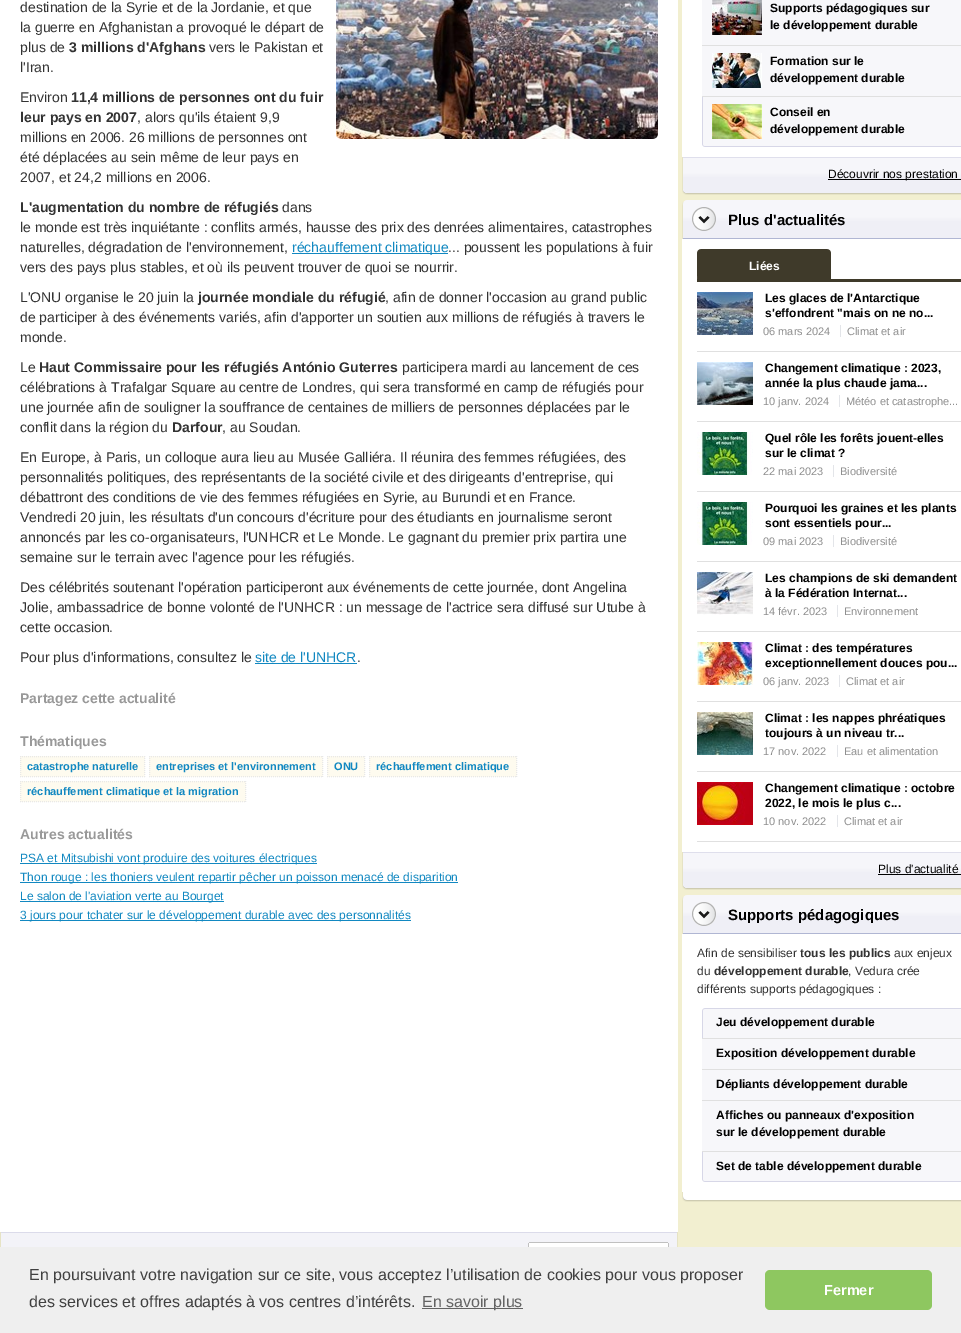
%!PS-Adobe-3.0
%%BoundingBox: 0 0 961 1333
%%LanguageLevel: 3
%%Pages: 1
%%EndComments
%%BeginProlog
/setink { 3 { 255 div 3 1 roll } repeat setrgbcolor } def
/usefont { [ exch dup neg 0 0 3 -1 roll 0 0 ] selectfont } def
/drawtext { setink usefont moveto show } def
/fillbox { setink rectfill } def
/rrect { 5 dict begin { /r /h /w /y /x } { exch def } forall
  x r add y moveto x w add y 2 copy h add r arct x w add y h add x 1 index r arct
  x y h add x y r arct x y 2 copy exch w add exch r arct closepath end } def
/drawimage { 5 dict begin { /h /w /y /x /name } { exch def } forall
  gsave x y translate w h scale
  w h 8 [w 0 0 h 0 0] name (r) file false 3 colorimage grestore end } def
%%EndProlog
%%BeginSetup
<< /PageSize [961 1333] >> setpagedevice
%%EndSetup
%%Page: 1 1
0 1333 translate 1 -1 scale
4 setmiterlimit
0 0 961 1333 242 239 208 fillbox
0 0 678 1232 255 255 255 fillbox
(destination de la Syrie et de la Jordanie, et que) 20 12 /LiberationSans-Regular 14 51 51 51 drawtext
(la guerre en Afghanistan a provoqué le départ de) 20 32 /LiberationSans-Regular 14 51 51 51 drawtext
(plus de) 20 52 /LiberationSans-Regular 14 51 51 51 drawtext
(3 millions d'Afghans) 69 52 /LiberationSans-Bold 14 51 51 51 drawtext
(vers le Pakistan et) 209 52 /LiberationSans-Regular 14 51 51 51 drawtext
(l'Iran.) 20 72 /LiberationSans-Regular 14 51 51 51 drawtext
(assets/img1.rgb) 336 0 322 139 drawimage
(Environ) 20 102 /LiberationSans-Regular 14 51 51 51 drawtext
(11,4 millions de personnes ont du fuir) 71 102 /LiberationSans-Bold 14 51 51 51 drawtext
(leur pays en 2007) 20 122 /LiberationSans-Bold 14 51 51 51 drawtext
(, alors qu'ils étaient 9,9) 137 122 /LiberationSans-Regular 14 51 51 51 drawtext
(millions en 2006. 26 millions de personnes ont) 20 142 /LiberationSans-Regular 14 51 51 51 drawtext
(été déplacées au sein même de leur pays en) 20 162 /LiberationSans-Regular 14 51 51 51 drawtext
(2007, et 24,2 millions en 2006.) 20 182 /LiberationSans-Regular 14 51 51 51 drawtext
(L'augmentation du nombre de réfugiés) 20 212 /LiberationSans-Bold 14 51 51 51 drawtext
(dans) 282 212 /LiberationSans-Regular 14 51 51 51 drawtext
(le monde est très inquiétante : conflits armés, hausse des prix des denrées alimentaires, catastrophes) 20 232 /LiberationSans-Regular 14 51 51 51 drawtext
(naturelles, dégradation de l'environnement,) 20 252 /LiberationSans-Regular 14 51 51 51 drawtext
292 253 156 1 18 136 193 fillbox
(réchauffement climatique) 292 252 /LiberationSans-Regular 14 17 136 193 drawtext
(... poussent les populations à fuir) 448 252 /LiberationSans-Regular 14 51 51 51 drawtext
(vers des pays plus stables, et où ils peuvent trouver de quoi se nourrir.) 20 272 /LiberationSans-Regular 14 51 51 51 drawtext
(L'ONU organise le 20 juin la) 20 302 /LiberationSans-Regular 14 51 51 51 drawtext
(journée mondiale du réfugié) 198 302 /LiberationSans-Bold 14 51 51 51 drawtext
(, afin de donner l'occasion au grand public) 385 302 /LiberationSans-Regular 14 51 51 51 drawtext
(de participer à des événements variés, afin d'apporter un soutien aux millions de réfugiés à travers le) 20 322 /LiberationSans-Regular 14 51 51 51 drawtext
(monde.) 20 342 /LiberationSans-Regular 14 51 51 51 drawtext
(Le) 20 372 /LiberationSans-Regular 14 51 51 51 drawtext
(Haut Commissaire pour les réfugiés António Guterres) 39 372 /LiberationSans-Bold 14 51 51 51 drawtext
(participera mardi au lancement de ces) 402 372 /LiberationSans-Regular 14 51 51 51 drawtext
(célébrations à Trafalgar Square au centre de Londres, qui sera transformé en camp de réfugiés pour) 20 392 /LiberationSans-Regular 14 51 51 51 drawtext
(une journée afin de souligner la souffrance de centaines de milliers de personnes déplacées par le) 20 412 /LiberationSans-Regular 14 51 51 51 drawtext
(conflit dans la région du) 20 432 /LiberationSans-Regular 14 51 51 51 drawtext
(Darfour) 172 432 /LiberationSans-Bold 14 51 51 51 drawtext
(, au Soudan.) 222 432 /LiberationSans-Regular 14 51 51 51 drawtext
(En Europe, à Paris, un colloque aura lieu au Musée Galliéra. Il réunira des femmes réfugiées, des) 20 462 /LiberationSans-Regular 14 51 51 51 drawtext
(personnalités politiques, des représentants de la société civile et des dirigeants d'entreprise, qui) 20 482 /LiberationSans-Regular 14 51 51 51 drawtext
(débattront des conditions de vie des femmes réfugiées en Syrie, au Burundi et en France.) 20 502 /LiberationSans-Regular 14 51 51 51 drawtext
(Vendredi 20 juin, les résultats d'un concours d'écriture pour des étudiants en journalisme seront) 20 522 /LiberationSans-Regular 14 51 51 51 drawtext
(annoncés par les co-organisateurs, l'UNHCR et Le Monde. Le gagnant du premier prix partira une) 20 542 /LiberationSans-Regular 14 51 51 51 drawtext
(semaine sur le terrain avec l'agence pour les réfugiés.) 20 562 /LiberationSans-Regular 14 51 51 51 drawtext
(Des célébrités soutenant l'opération participeront aux événements de cette journée, dont Angelina) 20 592 /LiberationSans-Regular 14 51 51 51 drawtext
(Jolie, ambassadrice de bonne volonté de l'UNHCR : un message de l'actrice sera diffusé sur Utube à) 20 612 /LiberationSans-Regular 14 51 51 51 drawtext
(cette occasion.) 20 632 /LiberationSans-Regular 14 51 51 51 drawtext
(Pour plus d'informations, consultez le) 20 662 /LiberationSans-Regular 14 51 51 51 drawtext
(site de l'UNHCR) 255 662 /LiberationSans-Regular 14 17 136 193 drawtext
255 663 102 1 18 136 193 fillbox
(.) 357 662 /LiberationSans-Regular 14 51 51 51 drawtext
(Partagez cette actualité) 20 703 /LiberationSans-Bold 14 153 153 153 drawtext
(Thématiques) 20 746 /LiberationSans-Bold 14 153 153 153 drawtext
20 756 125 21 254 251 239 fillbox
232 232 232 setink
[1 1] 0 setdash
20 756.5 moveto 145 756.5 lineto stroke
144.5 756 moveto 144.5 777 lineto stroke
20 776.5 moveto 145 776.5 lineto stroke
20.5 756 moveto 20.5 777 lineto stroke
(catastrophe naturelle) 27 770 /LiberationSans-Bold 11 17 136 193 drawtext
149 756 174 21 254 251 239 fillbox
232 232 232 setink
149 756.5 moveto 323 756.5 lineto stroke
322.5 756 moveto 322.5 777 lineto stroke
149 776.5 moveto 323 776.5 lineto stroke
149.5 756 moveto 149.5 777 lineto stroke
(entreprises et l'environnement) 156 770 /LiberationSans-Bold 11 17 136 193 drawtext
327 756 38 21 254 251 239 fillbox
232 232 232 setink
327 756.5 moveto 365 756.5 lineto 364.5 756 moveto 364.5 777 lineto 327 776.5 moveto 365 776.5 lineto 327.5 756 moveto 327.5 777 lineto stroke
(ONU) 334 770 /LiberationSans-Bold 11 17 136 193 drawtext
369 756 148 21 254 251 239 fillbox
232 232 232 setink
369 756.5 moveto 517 756.5 lineto stroke
516.5 756 moveto 516.5 777 lineto stroke
369 776.5 moveto 517 776.5 lineto stroke
369.5 756 moveto 369.5 777 lineto stroke
(réchauffement climatique) 376 770 /LiberationSans-Bold 11 17 136 193 drawtext
20 781 226 21 254 251 239 fillbox
232 232 232 setink
20 781.5 moveto 246 781.5 lineto stroke
245.5 781 moveto 245.5 802 lineto stroke
20 801.5 moveto 246 801.5 lineto stroke
20.5 781 moveto 20.5 802 lineto stroke
(réchauffement climatique et la migration) 27 795 /LiberationSans-Bold 11 17 136 193 drawtext
(Autres actualités) 20 839 /LiberationSans-Bold 14 153 153 153 drawtext
20 863 297 1 18 136 193 fillbox
(PSA et Mitsubishi vont produire des voitures électriques) 20 862 /LiberationSans-Regular 12 17 136 193 drawtext
20 882 438 1 18 136 193 fillbox
(Thon rouge : les thoniers veulent repartir pêcher un poisson menacé de disparition) 20 881 /LiberationSans-Regular 12 17 136 193 drawtext
20 901 204 1 18 136 193 fillbox
(Le salon de l'aviation verte au Bourget) 20 900 /LiberationSans-Regular 12 17 136 193 drawtext
20 920 391 1 18 136 193 fillbox
(3 jours pour tchater sur le développement durable avec des personnalités) 20 919 /LiberationSans-Regular 12 17 136 193 drawtext
(assets/img2.rgb) 0 1232 678 15 drawimage
(assets/img3.rgb) 529 1243 139 4 drawimage
529 1242 139 1 192 192 192 fillbox
668 1243 1 4 192 192 192 fillbox
528 1243 1 4 192 192 192 fillbox
682 0 279 157 255 255 255 fillbox
702 0 259 45 247 247 250 fillbox
702 45 259 1 224 224 224 fillbox
(assets/img4.rgb) 712 0 50 35 drawimage
(Supports pédagogiques sur) 770 12 /LiberationSans-Bold 12 0 0 0 drawtext
(le développement durable) 770 29 /LiberationSans-Bold 12 0 0 0 drawtext
702 46 259 50 247 247 250 fillbox
702 96 259 1 224 224 224 fillbox
(assets/img5.rgb) 712 53 50 35 drawimage
(Formation sur le) 770 65 /LiberationSans-Bold 12 0 0 0 drawtext
(développement durable) 770 82 /LiberationSans-Bold 12 0 0 0 drawtext
(assets/img6.rgb) 702 97 259 50 drawimage
(assets/img7.rgb) 712 104 50 35 drawimage
(Conseil en) 770 116 /LiberationSans-Bold 12 0 0 0 drawtext
(développement durable) 770 133 /LiberationSans-Bold 12 0 0 0 drawtext
(assets/img8.rgb) 682 157 279 38 drawimage
828 179 133 1 0 0 0 fillbox
(Découvrir nos prestation) 828 178 /LiberationSans-Regular 12 0 0 0 drawtext
(assets/img9.rgb) 682 200 279 39 drawimage
(assets/img10.rgb) 692 207 24 24 drawimage
(Plus d'actualités) 728 225 /LiberationSans-Bold 15 0 0 0 drawtext
682 239 279 613 255 255 255 fillbox
697 279 264 3 63 58 42 fillbox
(assets/img11.rgb) 697 249 134 30 drawimage
(Liées) 749 270 /LiberationSans-Bold 12 255 255 255 drawtext
697 351 264 1 224 224 224 fillbox
(assets/img12.rgb) 697 292 56 43 drawimage
(Les glaces de l'Antarctique) 765 302 /LiberationSans-Bold 12 0 0 0 drawtext
(s'effondrent "mais on ne no...) 765 317 /LiberationSans-Bold 12 0 0 0 drawtext
(06 mars 2024) 763 335 /LiberationSans-Regular 11 143 143 143 drawtext
(Climat et air) 847 335 /LiberationSans-Regular 11 143 143 143 drawtext
840 325 1 12 227 229 233 fillbox
697 421 264 1 224 224 224 fillbox
(assets/img13.rgb) 697 362 56 43 drawimage
(Changement climatique : 2023,) 765 372 /LiberationSans-Bold 12 0 0 0 drawtext
(année la plus chaude jama...) 765 387 /LiberationSans-Bold 12 0 0 0 drawtext
(10 janv. 2024) 763 405 /LiberationSans-Regular 11 143 143 143 drawtext
(Météo et catastrophe...) 846 405 /LiberationSans-Regular 11 143 143 143 drawtext
839 395 1 12 227 229 233 fillbox
697 491 264 1 224 224 224 fillbox
(assets/img14.rgb) 697 432 56 43 drawimage
(Quel rôle les forêts jouent-elles) 765 442 /LiberationSans-Bold 12 0 0 0 drawtext
(sur le climat ?) 765 457 /LiberationSans-Bold 12 0 0 0 drawtext
(22 mai 2023) 763 475 /LiberationSans-Regular 11 143 143 143 drawtext
(Biodiversité) 840 475 /LiberationSans-Regular 11 143 143 143 drawtext
833 465 1 12 227 229 233 fillbox
697 561 264 1 224 224 224 fillbox
(assets/img14.rgb) 697 502 56 43 drawimage
(Pourquoi les graines et les plants) 765 512 /LiberationSans-Bold 12 0 0 0 drawtext
(sont essentiels pour...) 765 527 /LiberationSans-Bold 12 0 0 0 drawtext
(09 mai 2023) 763 545 /LiberationSans-Regular 11 143 143 143 drawtext
(Biodiversité) 840 545 /LiberationSans-Regular 11 143 143 143 drawtext
833 535 1 12 227 229 233 fillbox
697 631 264 1 224 224 224 fillbox
(assets/img15.rgb) 697 572 56 43 drawimage
(Les champions de ski demandent) 765 582 /LiberationSans-Bold 12 0 0 0 drawtext
(à la Fédération Internat...) 765 597 /LiberationSans-Bold 12 0 0 0 drawtext
(14 févr. 2023) 763 615 /LiberationSans-Regular 11 143 143 143 drawtext
(Environnement) 844 615 /LiberationSans-Regular 11 143 143 143 drawtext
837 605 1 12 227 229 233 fillbox
697 701 264 1 224 224 224 fillbox
(assets/img16.rgb) 697 642 56 43 drawimage
(Climat : des températures) 765 652 /LiberationSans-Bold 12 0 0 0 drawtext
(exceptionnellement douces pou...) 765 667 /LiberationSans-Bold 12 0 0 0 drawtext
(06 janv. 2023) 763 685 /LiberationSans-Regular 11 143 143 143 drawtext
(Climat et air) 846 685 /LiberationSans-Regular 11 143 143 143 drawtext
839 675 1 12 227 229 233 fillbox
697 771 264 1 224 224 224 fillbox
(assets/img17.rgb) 697 712 56 43 drawimage
(Climat : les nappes phréatiques) 765 722 /LiberationSans-Bold 12 0 0 0 drawtext
(toujours à un niveau tr...) 765 737 /LiberationSans-Bold 12 0 0 0 drawtext
(17 nov. 2022) 763 755 /LiberationSans-Regular 11 143 143 143 drawtext
(Eau et alimentation) 844 755 /LiberationSans-Regular 11 143 143 143 drawtext
837 745 1 12 227 229 233 fillbox
697 841 264 1 224 224 224 fillbox
(assets/img18.rgb) 697 782 56 43 drawimage
(Changement climatique : octobre) 765 792 /LiberationSans-Bold 12 0 0 0 drawtext
(2022, le mois le plus c...) 765 807 /LiberationSans-Bold 12 0 0 0 drawtext
(10 nov. 2022) 763 825 /LiberationSans-Regular 11 143 143 143 drawtext
(Climat et air) 844 825 /LiberationSans-Regular 11 143 143 143 drawtext
837 815 1 12 227 229 233 fillbox
(assets/img8.rgb) 682 852 279 38 drawimage
(Plus d'actualité) 878 873 /LiberationSans-Regular 12 0 0 0 drawtext
878 874 83 1 0 0 0 fillbox
(assets/img9.rgb) 682 895 279 39 drawimage
(assets/img10.rgb) 692 902 24 24 drawimage
(Supports pédagogiques) 728 920 /LiberationSans-Bold 15 0 0 0 drawtext
682 934 279 258 255 255 255 fillbox
(Afin de sensibiliser) 697 957 /LiberationSans-Regular 12 51 51 51 drawtext
(tous les publics) 800 957 /LiberationSans-Bold 12 51 51 51 drawtext
(aux enjeux) 894 957 /LiberationSans-Regular 12 51 51 51 drawtext
(du) 697 975 /LiberationSans-Regular 12 51 51 51 drawtext
(développement durable) 714 975 /LiberationSans-Bold 12 51 51 51 drawtext
(, Vedura crée) 848 975 /LiberationSans-Regular 12 51 51 51 drawtext
(différents supports pédagogiques :) 697 993 /LiberationSans-Regular 12 51 51 51 drawtext
(assets/img19.rgb) 702 1008 259 30 drawimage
702 1038 259 1 224 224 224 fillbox
(Jeu développement durable) 716 1026 /LiberationSans-Bold 12 0 0 0 drawtext
702 1039 259 30 247 247 250 fillbox
702 1069 259 1 224 224 224 fillbox
(Exposition développement durable) 716 1057 /LiberationSans-Bold 12 0 0 0 drawtext
702 1070 259 30 247 247 250 fillbox
702 1100 259 1 224 224 224 fillbox
(Dépliants développement durable) 716 1088 /LiberationSans-Bold 12 0 0 0 drawtext
702 1101 259 50 247 247 250 fillbox
702 1151 259 1 224 224 224 fillbox
(Affiches ou panneaux d'exposition) 716 1119 /LiberationSans-Bold 12 0 0 0 drawtext
(sur le développement durable) 716 1136 /LiberationSans-Bold 12 0 0 0 drawtext
(assets/img20.rgb) 702 1152 259 30 drawimage
(Set de table développement durable) 716 1170 /LiberationSans-Bold 12 0 0 0 drawtext
(assets/img21.rgb) 682 1192 279 10 drawimage
0 1247 961 86 239 239 239 fillbox
(En poursuivant votre navigation sur ce site, vous acceptez l’utilisation de cookies pour vous proposer) 29 1280 /LiberationSans-Regular 16 64 64 64 drawtext
(des services et offres adaptés à vos centres d’intérêts.) 29 1307 /LiberationSans-Regular 16 64 64 64 drawtext
422 1308 101 1 99 99 99 fillbox
(En savoir plus) 422 1307 /LiberationSans-Regular 16 99 99 99 drawtext
142 199 96 setink
765 1270 167 40 5 rrect fill
(Fermer) 824 1295 /LiberationSans-Bold 14.5 255 255 255 drawtext
showpage
%%EOF
